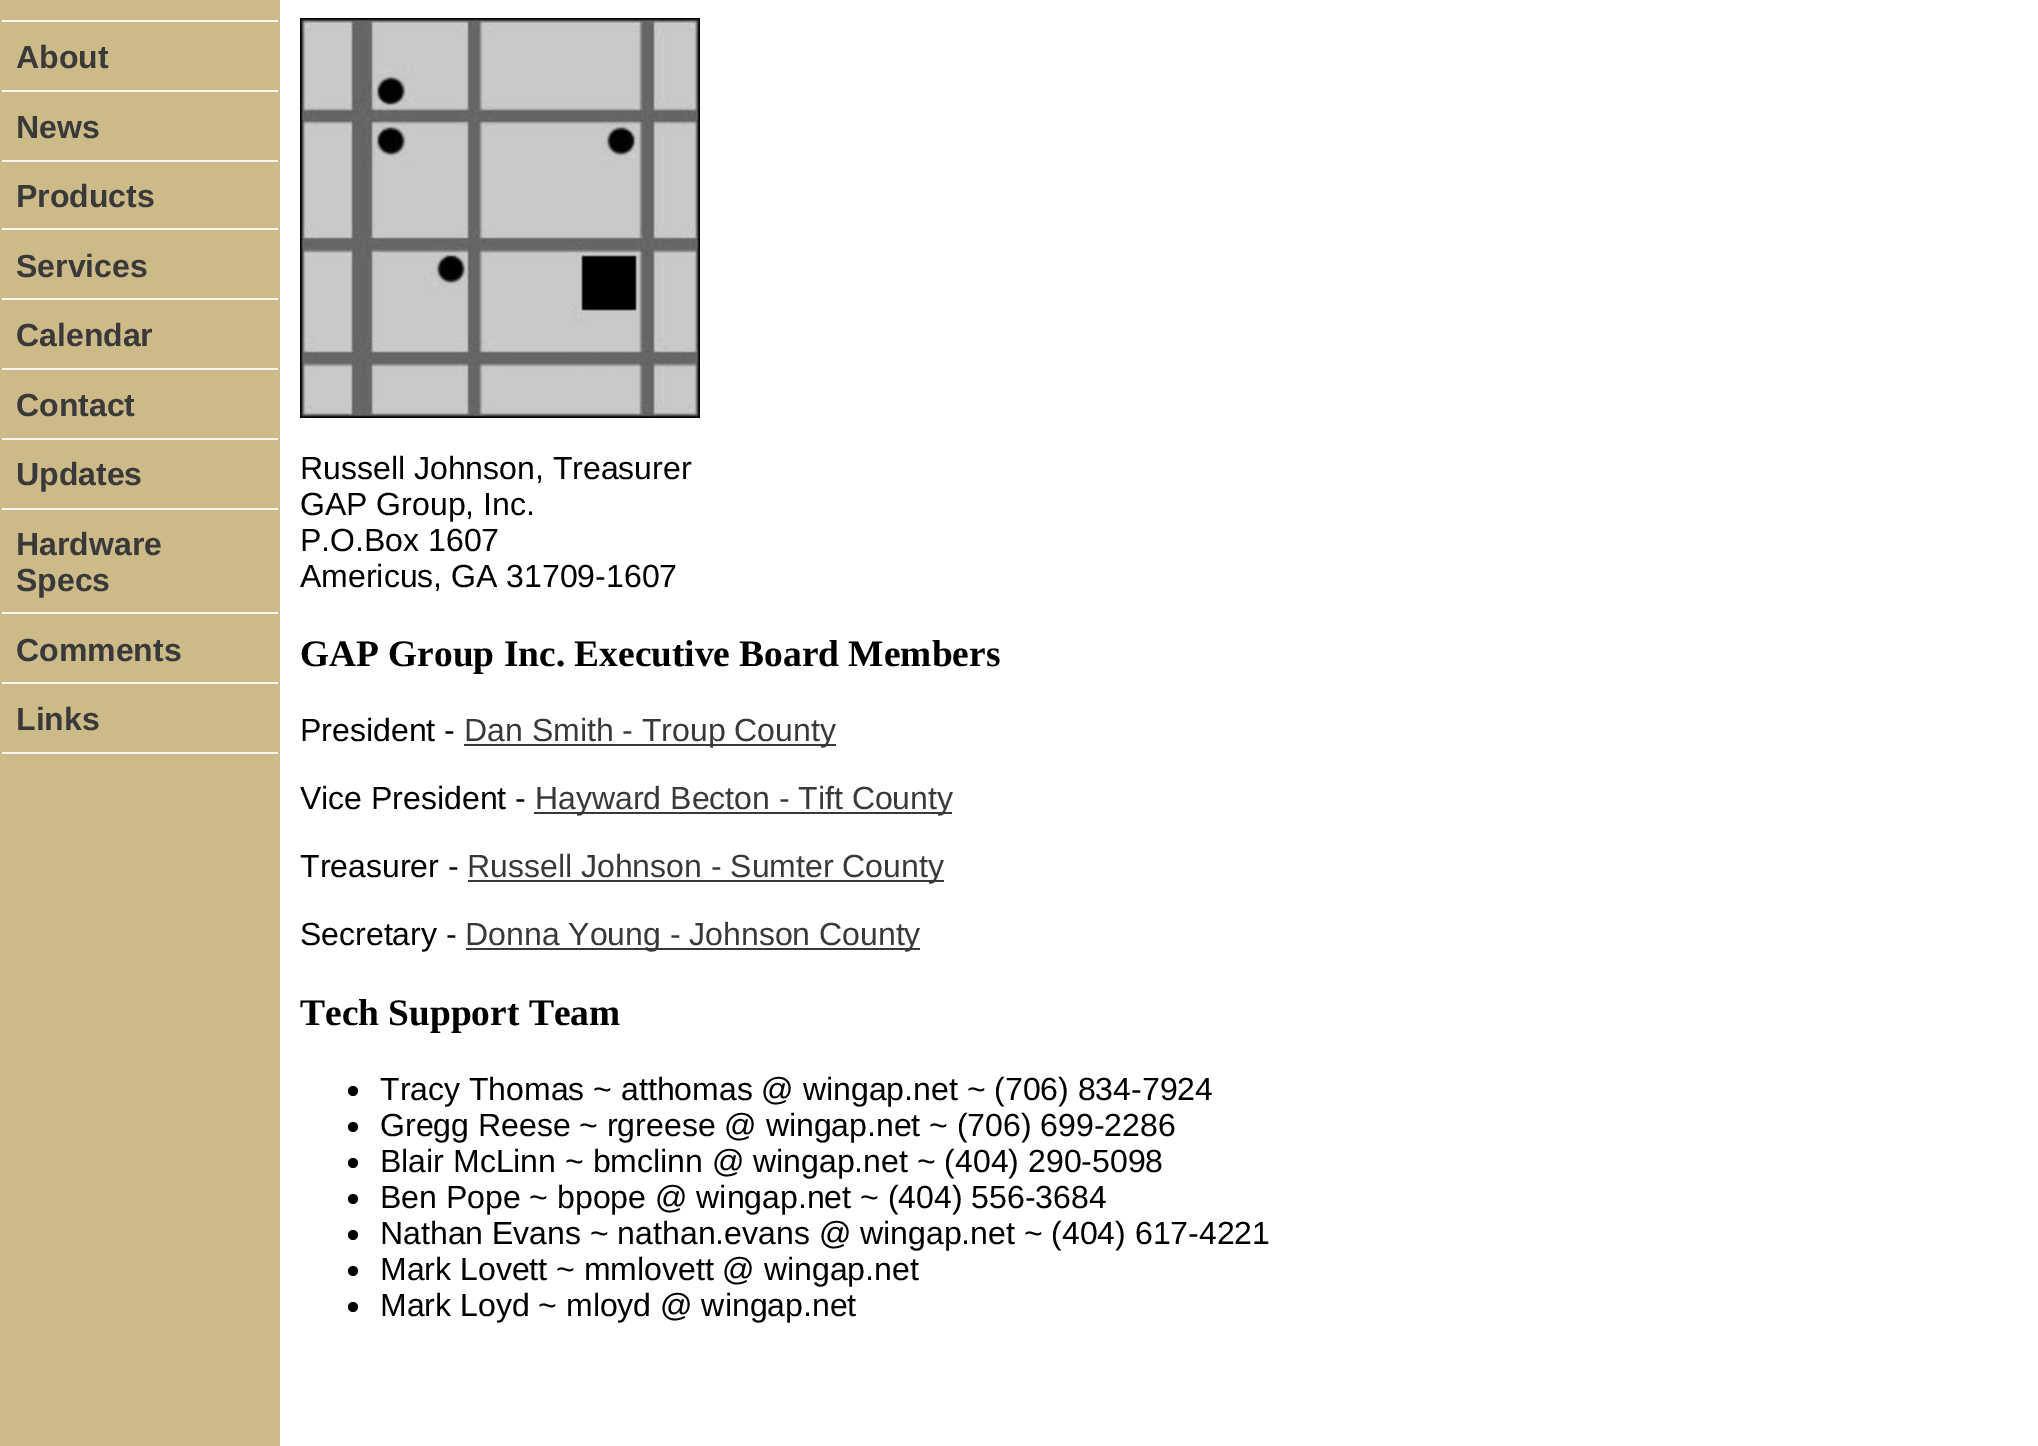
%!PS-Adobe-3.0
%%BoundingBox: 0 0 2038 1446
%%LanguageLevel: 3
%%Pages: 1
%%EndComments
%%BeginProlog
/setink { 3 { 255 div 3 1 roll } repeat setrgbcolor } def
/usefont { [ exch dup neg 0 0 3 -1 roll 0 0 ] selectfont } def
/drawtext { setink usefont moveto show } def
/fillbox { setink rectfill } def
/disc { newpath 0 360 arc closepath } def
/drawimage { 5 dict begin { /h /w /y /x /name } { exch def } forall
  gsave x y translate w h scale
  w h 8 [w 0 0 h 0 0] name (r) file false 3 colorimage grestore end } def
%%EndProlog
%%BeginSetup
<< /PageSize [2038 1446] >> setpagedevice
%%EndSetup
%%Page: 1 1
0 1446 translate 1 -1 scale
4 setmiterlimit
0 0 2038 1446 204 187 136 fillbox
2 20 276 2 245 245 245 fillbox
2 90 276 2 245 245 245 fillbox
(About) 16 68 /LiberationSans-Bold 32 57 57 57 drawtext
2 160 276 2 245 245 245 fillbox
(News) 16 138 /LiberationSans-Bold 32 57 57 57 drawtext
2 228 276 2 245 245 245 fillbox
(Products) 16 207 /LiberationSans-Bold 32 57 57 57 drawtext
2 298 276 2 245 245 245 fillbox
(Services) 16 277 /LiberationSans-Bold 32 57 57 57 drawtext
2 368 276 2 245 245 245 fillbox
(Calendar) 16 346 /LiberationSans-Bold 32 57 57 57 drawtext
2 438 276 2 245 245 245 fillbox
(Contact) 16 416 /LiberationSans-Bold 32 57 57 57 drawtext
2 508 276 2 245 245 245 fillbox
(Updates) 16 485 /LiberationSans-Bold 32 57 57 57 drawtext
2 612 276 2 245 245 245 fillbox
(Hardware) 16 555 /LiberationSans-Bold 32 57 57 57 drawtext
(Specs) 16 591 /LiberationSans-Bold 32 57 57 57 drawtext
2 682 276 2 245 245 245 fillbox
(Comments) 16 661 /LiberationSans-Bold 32 57 57 57 drawtext
2 752 276 2 245 245 245 fillbox
(Links) 16 730 /LiberationSans-Bold 32 57 57 57 drawtext
280 0 1758 1446 255 255 255 fillbox
(assets/img1.rgb) 300 18 400 400 drawimage
(Russell Johnson, Treasurer) 300 479 /LiberationSans-Regular 32 0 0 0 drawtext
(GAP Group, Inc.) 300 515 /LiberationSans-Regular 32 0 0 0 drawtext
(P.O.Box 1607) 300 551 /LiberationSans-Regular 32 0 0 0 drawtext
(Americus, GA 31709-1607) 300 587 /LiberationSans-Regular 32 0 0 0 drawtext
(GAP Group Inc. Executive Board Members) 300 666 /LiberationSerif-Bold 37.4 0 0 0 drawtext
(President -) 300 741 /LiberationSans-Regular 32 0 0 0 drawtext
464 744 372 2 57 57 57 fillbox
(Dan Smith - Troup County) 464 741 /LiberationSans-Regular 32 57 57 57 drawtext
(Vice President -) 300 809 /LiberationSans-Regular 32 0 0 0 drawtext
534 812 418 2 57 57 57 fillbox
(Hayward Becton - Tift County) 535 809 /LiberationSans-Regular 32 57 57 57 drawtext
(Treasurer -) 300 877 /LiberationSans-Regular 32 0 0 0 drawtext
468 880 476 2 57 57 57 fillbox
(Russell Johnson - Sumter County) 467 877 /LiberationSans-Regular 32 57 57 57 drawtext
(Secretary -) 300 945 /LiberationSans-Regular 32 0 0 0 drawtext
466 948 454 2 57 57 57 fillbox
(Donna Young - Johnson County) 465 945 /LiberationSans-Regular 32 57 57 57 drawtext
(Tech Support Team) 300 1025 /LiberationSerif-Bold 37.4 0 0 0 drawtext
353 1091 5 disc fill
(Tracy Thomas ~ atthomas @ wingap.net ~ \(706\) 834-7924) 380 1100 /LiberationSans-Regular 32 0 0 0 drawtext
353 1127 5 disc fill
(Gregg Reese ~ rgreese @ wingap.net ~ \(706\) 699-2286) 380 1136 /LiberationSans-Regular 32 0 0 0 drawtext
353 1163 5 disc fill
(Blair McLinn ~ bmclinn @ wingap.net ~ \(404\) 290-5098) 380 1172 /LiberationSans-Regular 32 0 0 0 drawtext
353 1199 5 disc fill
(Ben Pope ~ bpope @ wingap.net ~ \(404\) 556-3684) 380 1208 /LiberationSans-Regular 32 0 0 0 drawtext
353 1235 5 disc fill
(Nathan Evans ~ nathan.evans @ wingap.net ~ \(404\) 617-4221) 380 1244 /LiberationSans-Regular 32 0 0 0 drawtext
353 1271 5 disc fill
(Mark Lovett ~ mmlovett @ wingap.net) 380 1280 /LiberationSans-Regular 32 0 0 0 drawtext
353 1307 5 disc fill
(Mark Loyd ~ mloyd @ wingap.net) 380 1316 /LiberationSans-Regular 32 0 0 0 drawtext
showpage
%%EOF
